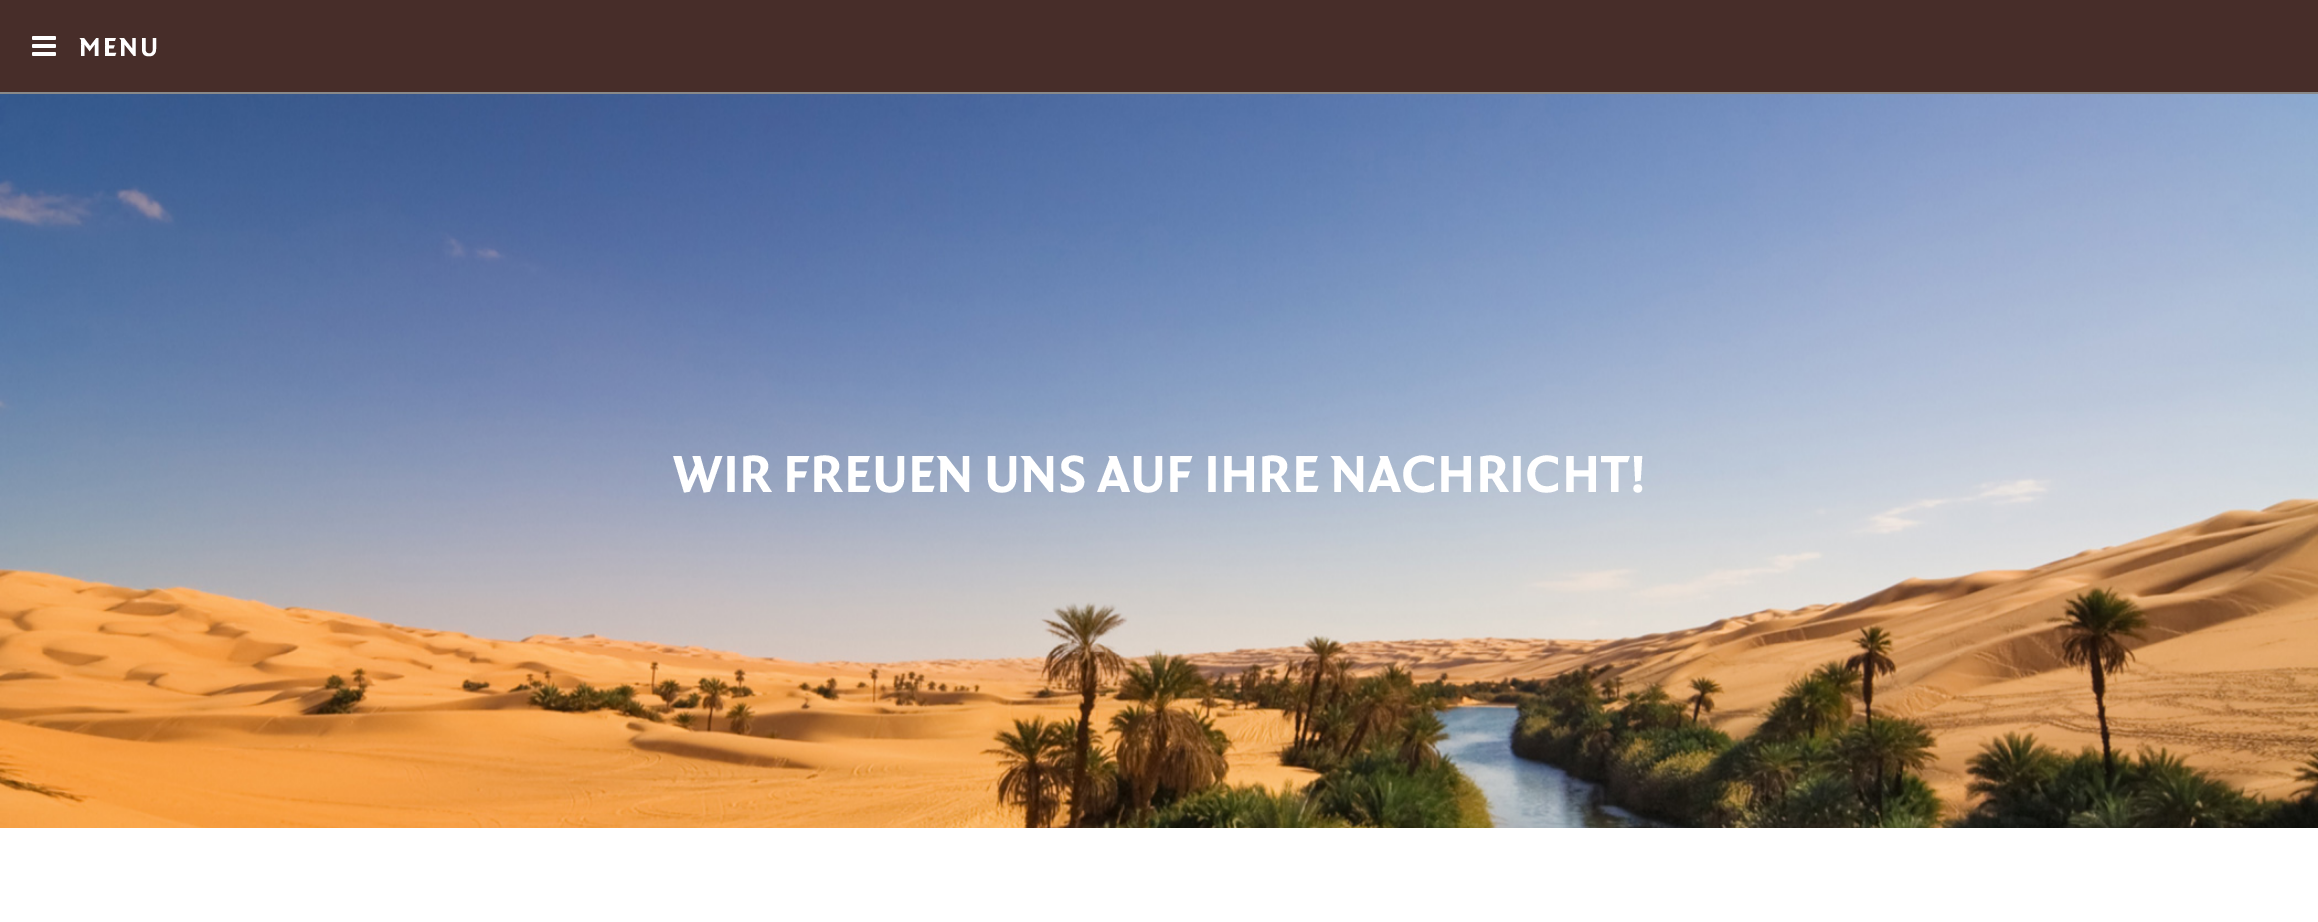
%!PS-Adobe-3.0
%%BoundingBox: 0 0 2318 922
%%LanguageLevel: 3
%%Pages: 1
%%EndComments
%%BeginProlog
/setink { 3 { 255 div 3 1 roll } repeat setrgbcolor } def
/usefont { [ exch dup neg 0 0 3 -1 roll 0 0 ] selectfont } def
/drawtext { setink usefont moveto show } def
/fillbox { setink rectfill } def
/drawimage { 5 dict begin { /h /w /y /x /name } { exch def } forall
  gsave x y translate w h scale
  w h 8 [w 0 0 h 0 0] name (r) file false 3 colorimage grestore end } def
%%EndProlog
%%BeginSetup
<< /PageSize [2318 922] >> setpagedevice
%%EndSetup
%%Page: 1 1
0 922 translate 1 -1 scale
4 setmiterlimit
0 0 2318 922 255 255 255 fillbox
0 92 2318 2 137 137 137 fillbox
0 0 2318 92 71 45 41 fillbox
(assets/img1.rgb) 32 36 24 20 drawimage
/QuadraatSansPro-Bold 28 usefont
255 255 255 setink
79 56 moveto 2 0 (MENU) ashow
(assets/img2.rgb) 0 94 2318 734 drawimage
(WIR FREUEN UNS AUF IHRE NACHRICHT!) 673 492 /QuadraatSansPro-Bold 56 255 255 255 drawtext
showpage
%%EOF
